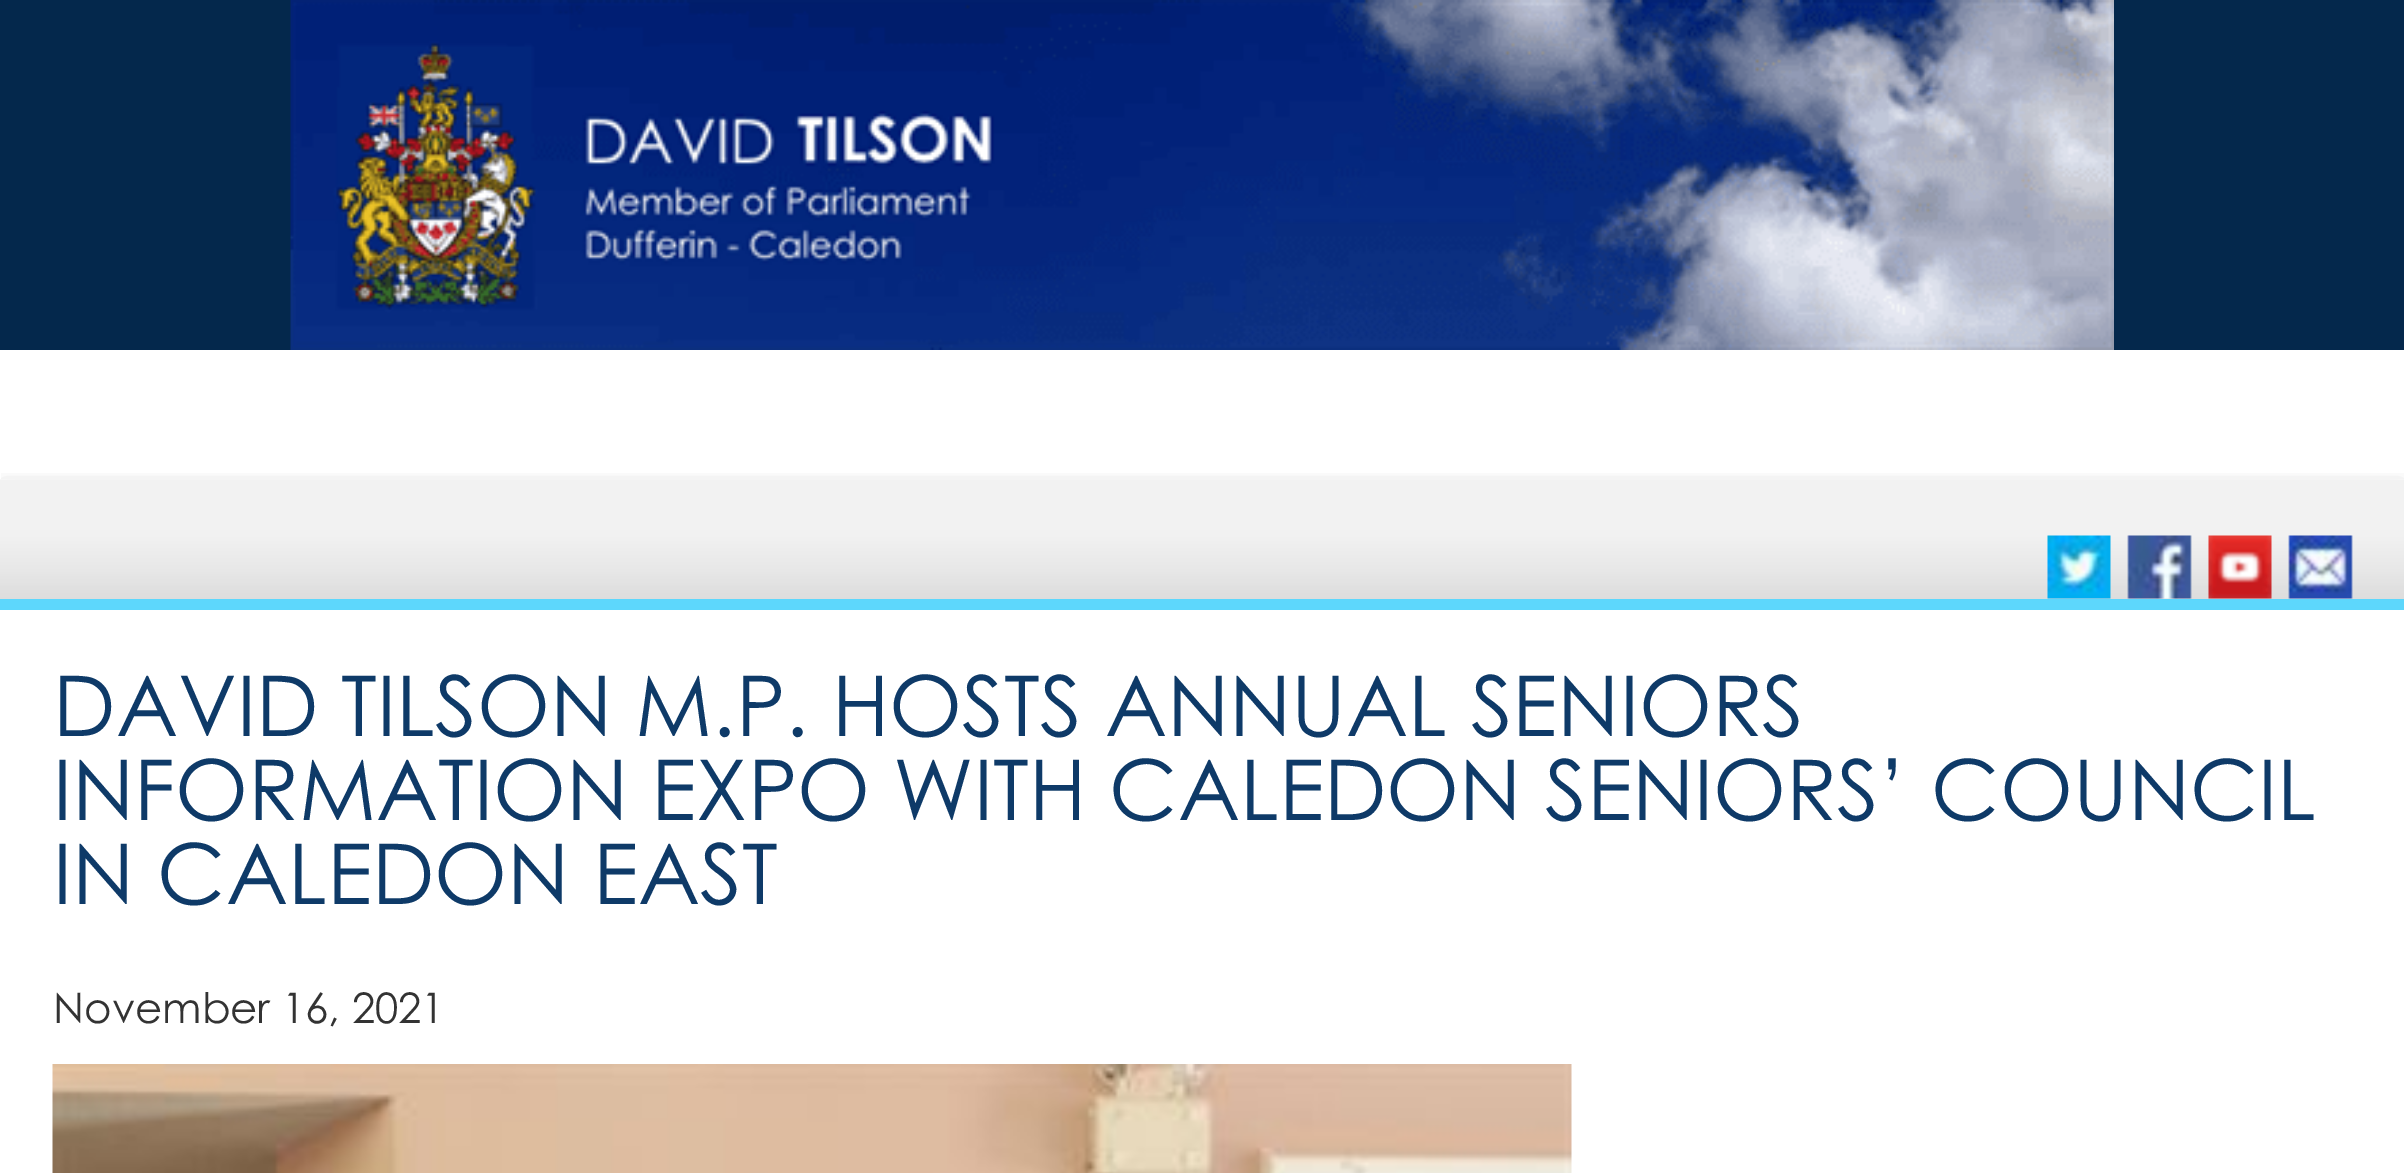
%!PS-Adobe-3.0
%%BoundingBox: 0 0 2404 1173
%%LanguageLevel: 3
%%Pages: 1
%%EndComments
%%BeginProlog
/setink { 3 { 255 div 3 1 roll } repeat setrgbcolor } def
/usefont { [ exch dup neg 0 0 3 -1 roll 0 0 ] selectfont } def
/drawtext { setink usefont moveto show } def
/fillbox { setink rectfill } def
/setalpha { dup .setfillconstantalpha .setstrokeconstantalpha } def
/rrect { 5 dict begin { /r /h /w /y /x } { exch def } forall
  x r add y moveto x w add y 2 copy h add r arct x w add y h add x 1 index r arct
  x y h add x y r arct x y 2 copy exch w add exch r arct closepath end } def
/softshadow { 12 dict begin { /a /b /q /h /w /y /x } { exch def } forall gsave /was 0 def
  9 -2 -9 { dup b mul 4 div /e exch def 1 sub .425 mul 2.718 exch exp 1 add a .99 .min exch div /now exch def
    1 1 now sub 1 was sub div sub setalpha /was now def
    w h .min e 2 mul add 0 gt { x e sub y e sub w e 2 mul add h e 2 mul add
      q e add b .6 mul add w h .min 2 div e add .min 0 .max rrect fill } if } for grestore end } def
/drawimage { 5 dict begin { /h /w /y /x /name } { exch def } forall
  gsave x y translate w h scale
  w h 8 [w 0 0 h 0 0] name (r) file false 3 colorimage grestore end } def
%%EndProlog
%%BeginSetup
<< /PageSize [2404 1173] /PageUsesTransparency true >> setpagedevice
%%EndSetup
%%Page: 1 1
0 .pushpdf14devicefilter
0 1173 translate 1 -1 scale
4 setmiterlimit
0 0 2404 1173 255 255 255 fillbox
0 0 2404 350 4 40 76 fillbox
(assets/img1.rgb) 290 0 1824 350 drawimage
gsave
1 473 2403 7 rectclip
0 0 0 setink
4 487 2397 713 0 9 0.3 softshadow
grestore
(assets/img2.rgb) 0 479 2404 120 drawimage
0 599 2404 11 93 215 252 fillbox
(assets/img3.rgb) 2047 535 64 64 drawimage
(assets/img4.rgb) 2127 535 65 64 drawimage
(assets/img5.rgb) 2208 535 64 64 drawimage
(assets/img6.rgb) 2288 535 65 64 drawimage
(DAVID TILSON M.P. HOSTS ANNUAL SENIORS) 53 736 /CenturyGothic-Regular 84 14 58 104 drawtext
(INFORMATION EXPO WITH CALEDON SENIORS’ COUNCIL) 53 820 /CenturyGothic-Regular 84 14 58 104 drawtext
(IN CALEDON EAST) 53 904 /CenturyGothic-Regular 84 14 58 104 drawtext
(November 16, 2021) 53 1023 /CenturyGothic-Regular 42 51 51 51 drawtext
(assets/img7.rgb) 52 1064 1520 109 drawimage
.poppdf14devicefilter showpage
%%EOF
